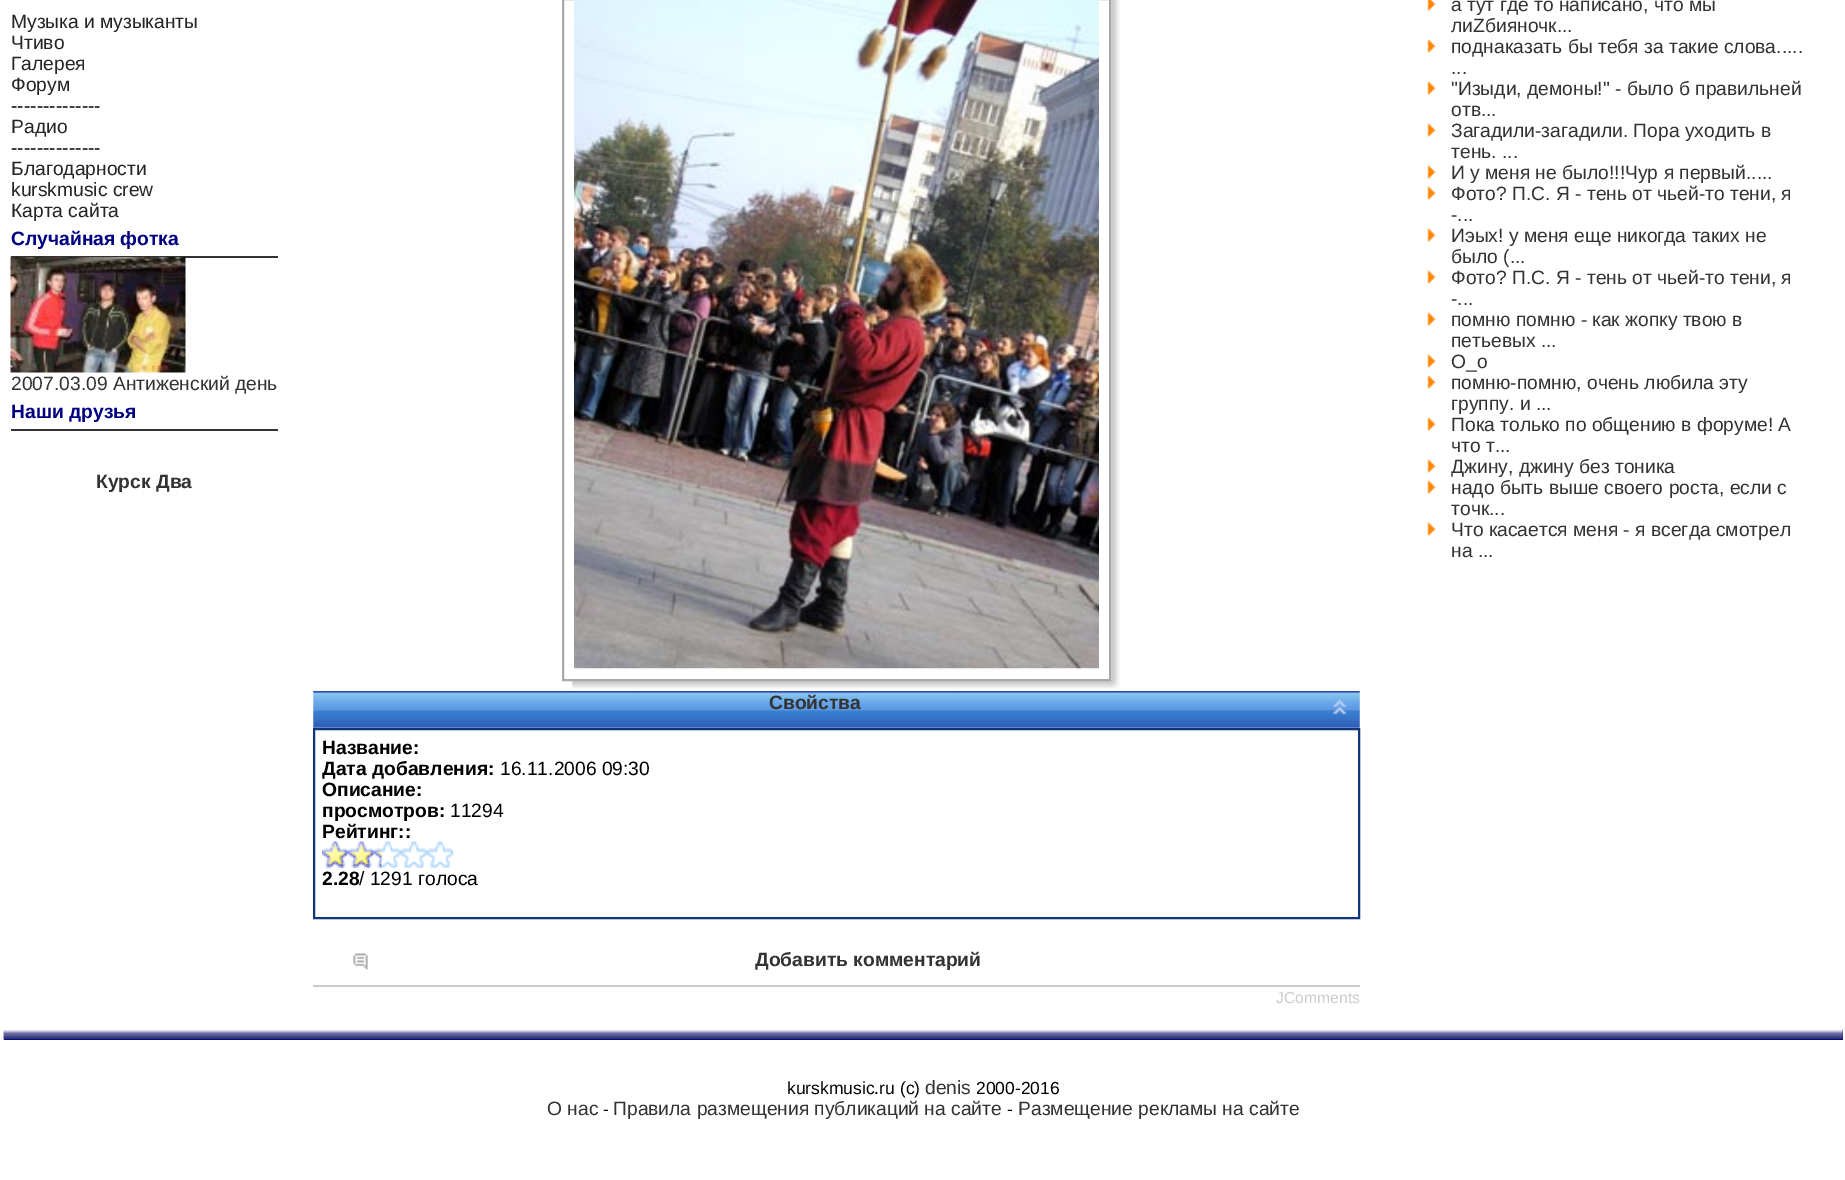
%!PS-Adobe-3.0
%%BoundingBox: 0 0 1845 1180
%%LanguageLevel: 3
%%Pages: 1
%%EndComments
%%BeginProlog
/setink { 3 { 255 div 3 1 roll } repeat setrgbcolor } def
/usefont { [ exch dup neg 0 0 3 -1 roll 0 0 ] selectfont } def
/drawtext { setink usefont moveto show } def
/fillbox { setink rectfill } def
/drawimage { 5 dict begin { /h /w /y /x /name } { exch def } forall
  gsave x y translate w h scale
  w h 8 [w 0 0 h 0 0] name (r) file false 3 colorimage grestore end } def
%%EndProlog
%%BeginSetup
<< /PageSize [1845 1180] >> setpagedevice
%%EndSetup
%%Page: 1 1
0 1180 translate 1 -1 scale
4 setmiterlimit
0 0 1845 1180 255 255 255 fillbox
(Музыка и музыканты) 11 28 /LiberationSans-Regular 19.25 36 36 36 drawtext
(Чтиво) 11 49 /LiberationSans-Regular 19.25 36 36 36 drawtext
(Галерея) 11 70 /LiberationSans-Regular 19.25 36 36 36 drawtext
(Форум) 11 91 /LiberationSans-Regular 19.25 36 36 36 drawtext
(--------------) 11 112 /LiberationSans-Regular 19.25 0 0 0 drawtext
(Радио) 11 133 /LiberationSans-Regular 19.25 36 36 36 drawtext
(--------------) 11 154 /LiberationSans-Regular 19.25 0 0 0 drawtext
(Благодарности) 11 175 /LiberationSans-Regular 19.25 36 36 36 drawtext
(kurskmusic crew) 11 196 /LiberationSans-Regular 19.25 36 36 36 drawtext
(Карта сайта) 11 217 /LiberationSans-Regular 19.25 36 36 36 drawtext
11 256 267 2 51 51 51 fillbox
(Случайная фотка) 11 245 /LiberationSans-Bold 19.25 0 0 128 drawtext
(assets/img1.rgb) 10 257 176 116 drawimage
(2007.03.09 Антиженский день) 11 390 /LiberationSans-Regular 19.25 51 51 51 drawtext
11 429 267 2 51 51 51 fillbox
(Наши друзья) 11 418 /LiberationSans-Bold 19.25 0 0 128 drawtext
(Курск Два) 96 488 /LiberationSans-Bold 19.25 51 51 51 drawtext
(assets/img2.rgb) 1427 0 9 11 drawimage
(а тут где то написано, что мы) 1451 11 /LiberationSans-Regular 19.25 51 51 51 drawtext
(лиZбияночк...) 1451 32 /LiberationSans-Regular 19.25 51 51 51 drawtext
(assets/img3.rgb) 1427 39 9 14 drawimage
(поднаказать бы тебя за такие слова.....) 1451 53 /LiberationSans-Regular 19.25 51 51 51 drawtext
(...) 1451 74 /LiberationSans-Regular 19.25 51 51 51 drawtext
(assets/img3.rgb) 1427 81 9 14 drawimage
("Изыди, демоны!" - было б правильней) 1451 95 /LiberationSans-Regular 19.25 51 51 51 drawtext
(отв...) 1451 116 /LiberationSans-Regular 19.25 51 51 51 drawtext
(assets/img3.rgb) 1427 123 9 14 drawimage
(Загадили-загадили. Пора уходить в) 1451 137 /LiberationSans-Regular 19.25 51 51 51 drawtext
(тень. ...) 1451 158 /LiberationSans-Regular 19.25 51 51 51 drawtext
(assets/img3.rgb) 1427 165 9 14 drawimage
(И у меня не было!!!Чур я первый.....) 1451 179 /LiberationSans-Regular 19.25 51 51 51 drawtext
(assets/img3.rgb) 1427 186 9 14 drawimage
(Фото? П.С. Я - тень от чьей-то тени, я) 1451 200 /LiberationSans-Regular 19.25 51 51 51 drawtext
(-...) 1451 221 /LiberationSans-Regular 19.25 51 51 51 drawtext
(assets/img3.rgb) 1427 228 9 14 drawimage
(Иэых! у меня еще никогда таких не) 1451 242 /LiberationSans-Regular 19.25 51 51 51 drawtext
(было \(...) 1451 263 /LiberationSans-Regular 19.25 51 51 51 drawtext
(assets/img3.rgb) 1427 270 9 14 drawimage
(Фото? П.С. Я - тень от чьей-то тени, я) 1451 284 /LiberationSans-Regular 19.25 51 51 51 drawtext
(-...) 1451 305 /LiberationSans-Regular 19.25 51 51 51 drawtext
(assets/img3.rgb) 1427 312 9 14 drawimage
(помню помню - как жопку твою в) 1451 326 /LiberationSans-Regular 19.25 51 51 51 drawtext
(петьевых ...) 1451 347 /LiberationSans-Regular 19.25 51 51 51 drawtext
(assets/img3.rgb) 1427 354 9 14 drawimage
(О_о) 1451 368 /LiberationSans-Regular 19.25 51 51 51 drawtext
(assets/img3.rgb) 1427 375 9 14 drawimage
(помню-помню, очень любила эту) 1451 389 /LiberationSans-Regular 19.25 51 51 51 drawtext
(группу. и ...) 1451 410 /LiberationSans-Regular 19.25 51 51 51 drawtext
(assets/img3.rgb) 1427 417 9 14 drawimage
(Пока только по общению в форуме! А) 1451 431 /LiberationSans-Regular 19.25 51 51 51 drawtext
(что т...) 1451 452 /LiberationSans-Regular 19.25 51 51 51 drawtext
(assets/img3.rgb) 1427 459 9 14 drawimage
(Джину, джину без тоника) 1451 473 /LiberationSans-Regular 19.25 51 51 51 drawtext
(assets/img3.rgb) 1427 480 9 14 drawimage
(надо быть выше своего роста, если с) 1451 494 /LiberationSans-Regular 19.25 51 51 51 drawtext
(точк...) 1451 515 /LiberationSans-Regular 19.25 51 51 51 drawtext
(assets/img3.rgb) 1427 522 9 14 drawimage
(Что касается меня - я всегда смотрел) 1451 536 /LiberationSans-Regular 19.25 51 51 51 drawtext
(на ...) 1451 557 /LiberationSans-Regular 19.25 51 51 51 drawtext
(assets/img4.rgb) 572 0 548 689 drawimage
169 169 169 setink
2 setlinewidth
563 -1 547 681 rectstroke
(assets/img5.rgb) 574 0 525 669 drawimage
(assets/img6.rgb) 313 691 1047 37 drawimage
(assets/img7.rgb) 770 692 91 2 drawimage
(Свойства) 769 709 /LiberationSans-Bold 19.25 51 51 51 drawtext
(assets/img8.rgb) 1333 699 14 16 drawimage
15 54 123 setink
314 729 1045 189 rectstroke
(Название:) 322 754 /LiberationSans-Bold 19.25 0 0 0 drawtext
(Дата добавления:) 322 775 /LiberationSans-Bold 19.25 0 0 0 drawtext
(16.11.2006 09:30) 500 775 /LiberationSans-Regular 19.25 0 0 0 drawtext
(Описание:) 322 796 /LiberationSans-Bold 19.25 0 0 0 drawtext
(просмотров:) 322 817 /LiberationSans-Bold 19.25 0 0 0 drawtext
(11294) 450 817 /LiberationSans-Regular 19.25 0 0 0 drawtext
(Рейтинг::) 322 838 /LiberationSans-Bold 19.25 0 0 0 drawtext
(assets/img9.rgb) 322 841 132 27 drawimage
(assets/img10.rgb) 322 841 60 27 drawimage
(2.28) 322 885 /LiberationSans-Bold 19.25 0 0 0 drawtext
(/ 1291 голоса) 359 885 /LiberationSans-Regular 19.25 0 0 0 drawtext
(assets/img11.rgb) 353 953 15 17 drawimage
(Добавить комментарий) 755 966 /LiberationSans-Bold 19.25 51 51 51 drawtext
313 985 1047 2 204 204 204 fillbox
(JComments) 1276 1003 /LiberationSans-Regular 15.75 204 204 204 drawtext
4 1029 1839 11 0 0 139 fillbox
(assets/img12.rgb) 3 1029 1840 11 drawimage
(kurskmusic.ru \(с\)) 787 1094 /LiberationSans-Regular 17.5 0 0 0 drawtext
(denis) 925 1094 /LiberationSans-Regular 19.25 51 51 51 drawtext
(2000-2016) 976 1094 /LiberationSans-Regular 17.5 0 0 0 drawtext
(О нас) 547 1115 /LiberationSans-Regular 19.25 51 51 51 drawtext
(-) 603 1115 /LiberationSans-Regular 17.5 0 0 0 drawtext
(Правила размещения публикаций на сайте) 613 1115 /LiberationSans-Regular 19.25 51 51 51 drawtext
(-) 1007 1115 /LiberationSans-Regular 17.5 0 0 0 drawtext
(Размещение рекламы на сайте) 1018 1115 /LiberationSans-Regular 19.25 51 51 51 drawtext
showpage
%%EOF
